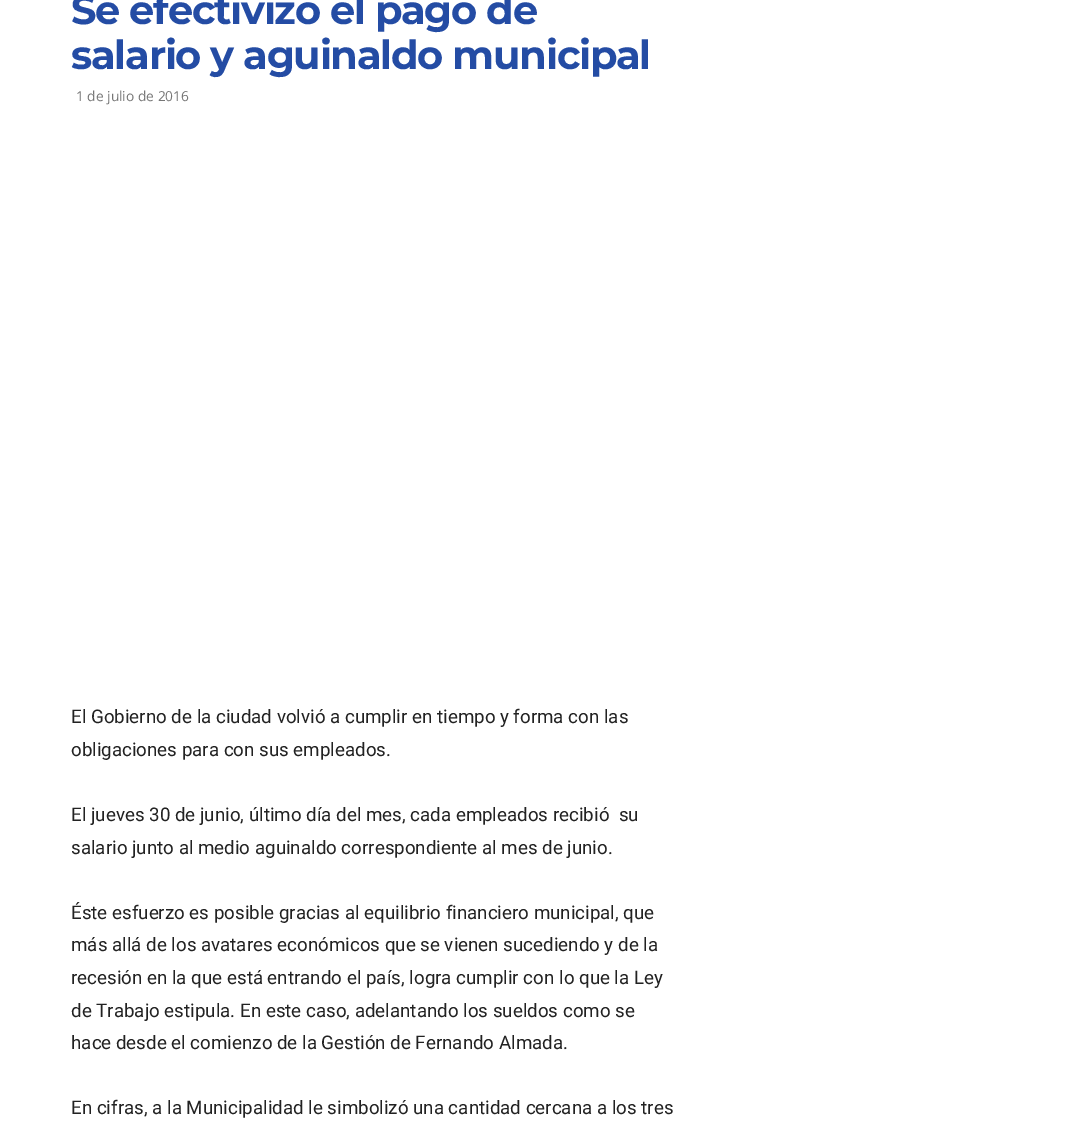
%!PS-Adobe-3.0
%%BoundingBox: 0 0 1066 1131
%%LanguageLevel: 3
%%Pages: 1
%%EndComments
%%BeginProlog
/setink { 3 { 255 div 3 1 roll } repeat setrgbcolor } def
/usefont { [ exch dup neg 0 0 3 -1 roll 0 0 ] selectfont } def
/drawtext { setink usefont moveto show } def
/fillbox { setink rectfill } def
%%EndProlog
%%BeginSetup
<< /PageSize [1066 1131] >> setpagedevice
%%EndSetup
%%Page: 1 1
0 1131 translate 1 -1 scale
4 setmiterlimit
0 0 1066 1131 255 255 255 fillbox
/Montserrat-Bold 40 usefont
36 76 164 setink
71 24 moveto -1.25 0 (Se efectivizó el pago de) ashow
71 69 moveto -1.25 0 (salario y aguinaldo municipal) ashow
(1 de julio de 2016) 76 101 /OpenSans-Regular 13.75 118 118 118 drawtext
(El Gobierno de la ciudad volvió a cumplir en tiempo y forma con las) 71 723 /Roboto-Regular 18.75 34 34 34 drawtext
(obligaciones para con sus empleados.) 71 756 /Roboto-Regular 18.75 34 34 34 drawtext
(El jueves 30 de junio, último día del mes, cada empleados recibió  su) 71 821 /Roboto-Regular 18.75 34 34 34 drawtext
(salario junto al medio aguinaldo correspondiente al mes de junio.) 71 854 /Roboto-Regular 18.75 34 34 34 drawtext
(Éste esfuerzo es posible gracias al equilibrio financiero municipal, que) 71 919 /Roboto-Regular 18.75 34 34 34 drawtext
(más allá de los avatares económicos que se vienen sucediendo y de la) 71 951 /Roboto-Regular 18.75 34 34 34 drawtext
(recesión en la que está entrando el país, logra cumplir con lo que la Ley) 71 984 /Roboto-Regular 18.75 34 34 34 drawtext
(de Trabajo estipula. En este caso, adelantando los sueldos como se) 71 1017 /Roboto-Regular 18.75 34 34 34 drawtext
(hace desde el comienzo de la Gestión de Fernando Almada.) 71 1049 /Roboto-Regular 18.75 34 34 34 drawtext
(En cifras, a la Municipalidad le simbolizó una cantidad cercana a los tres) 71 1114 /Roboto-Regular 18.75 34 34 34 drawtext
showpage
%%EOF
